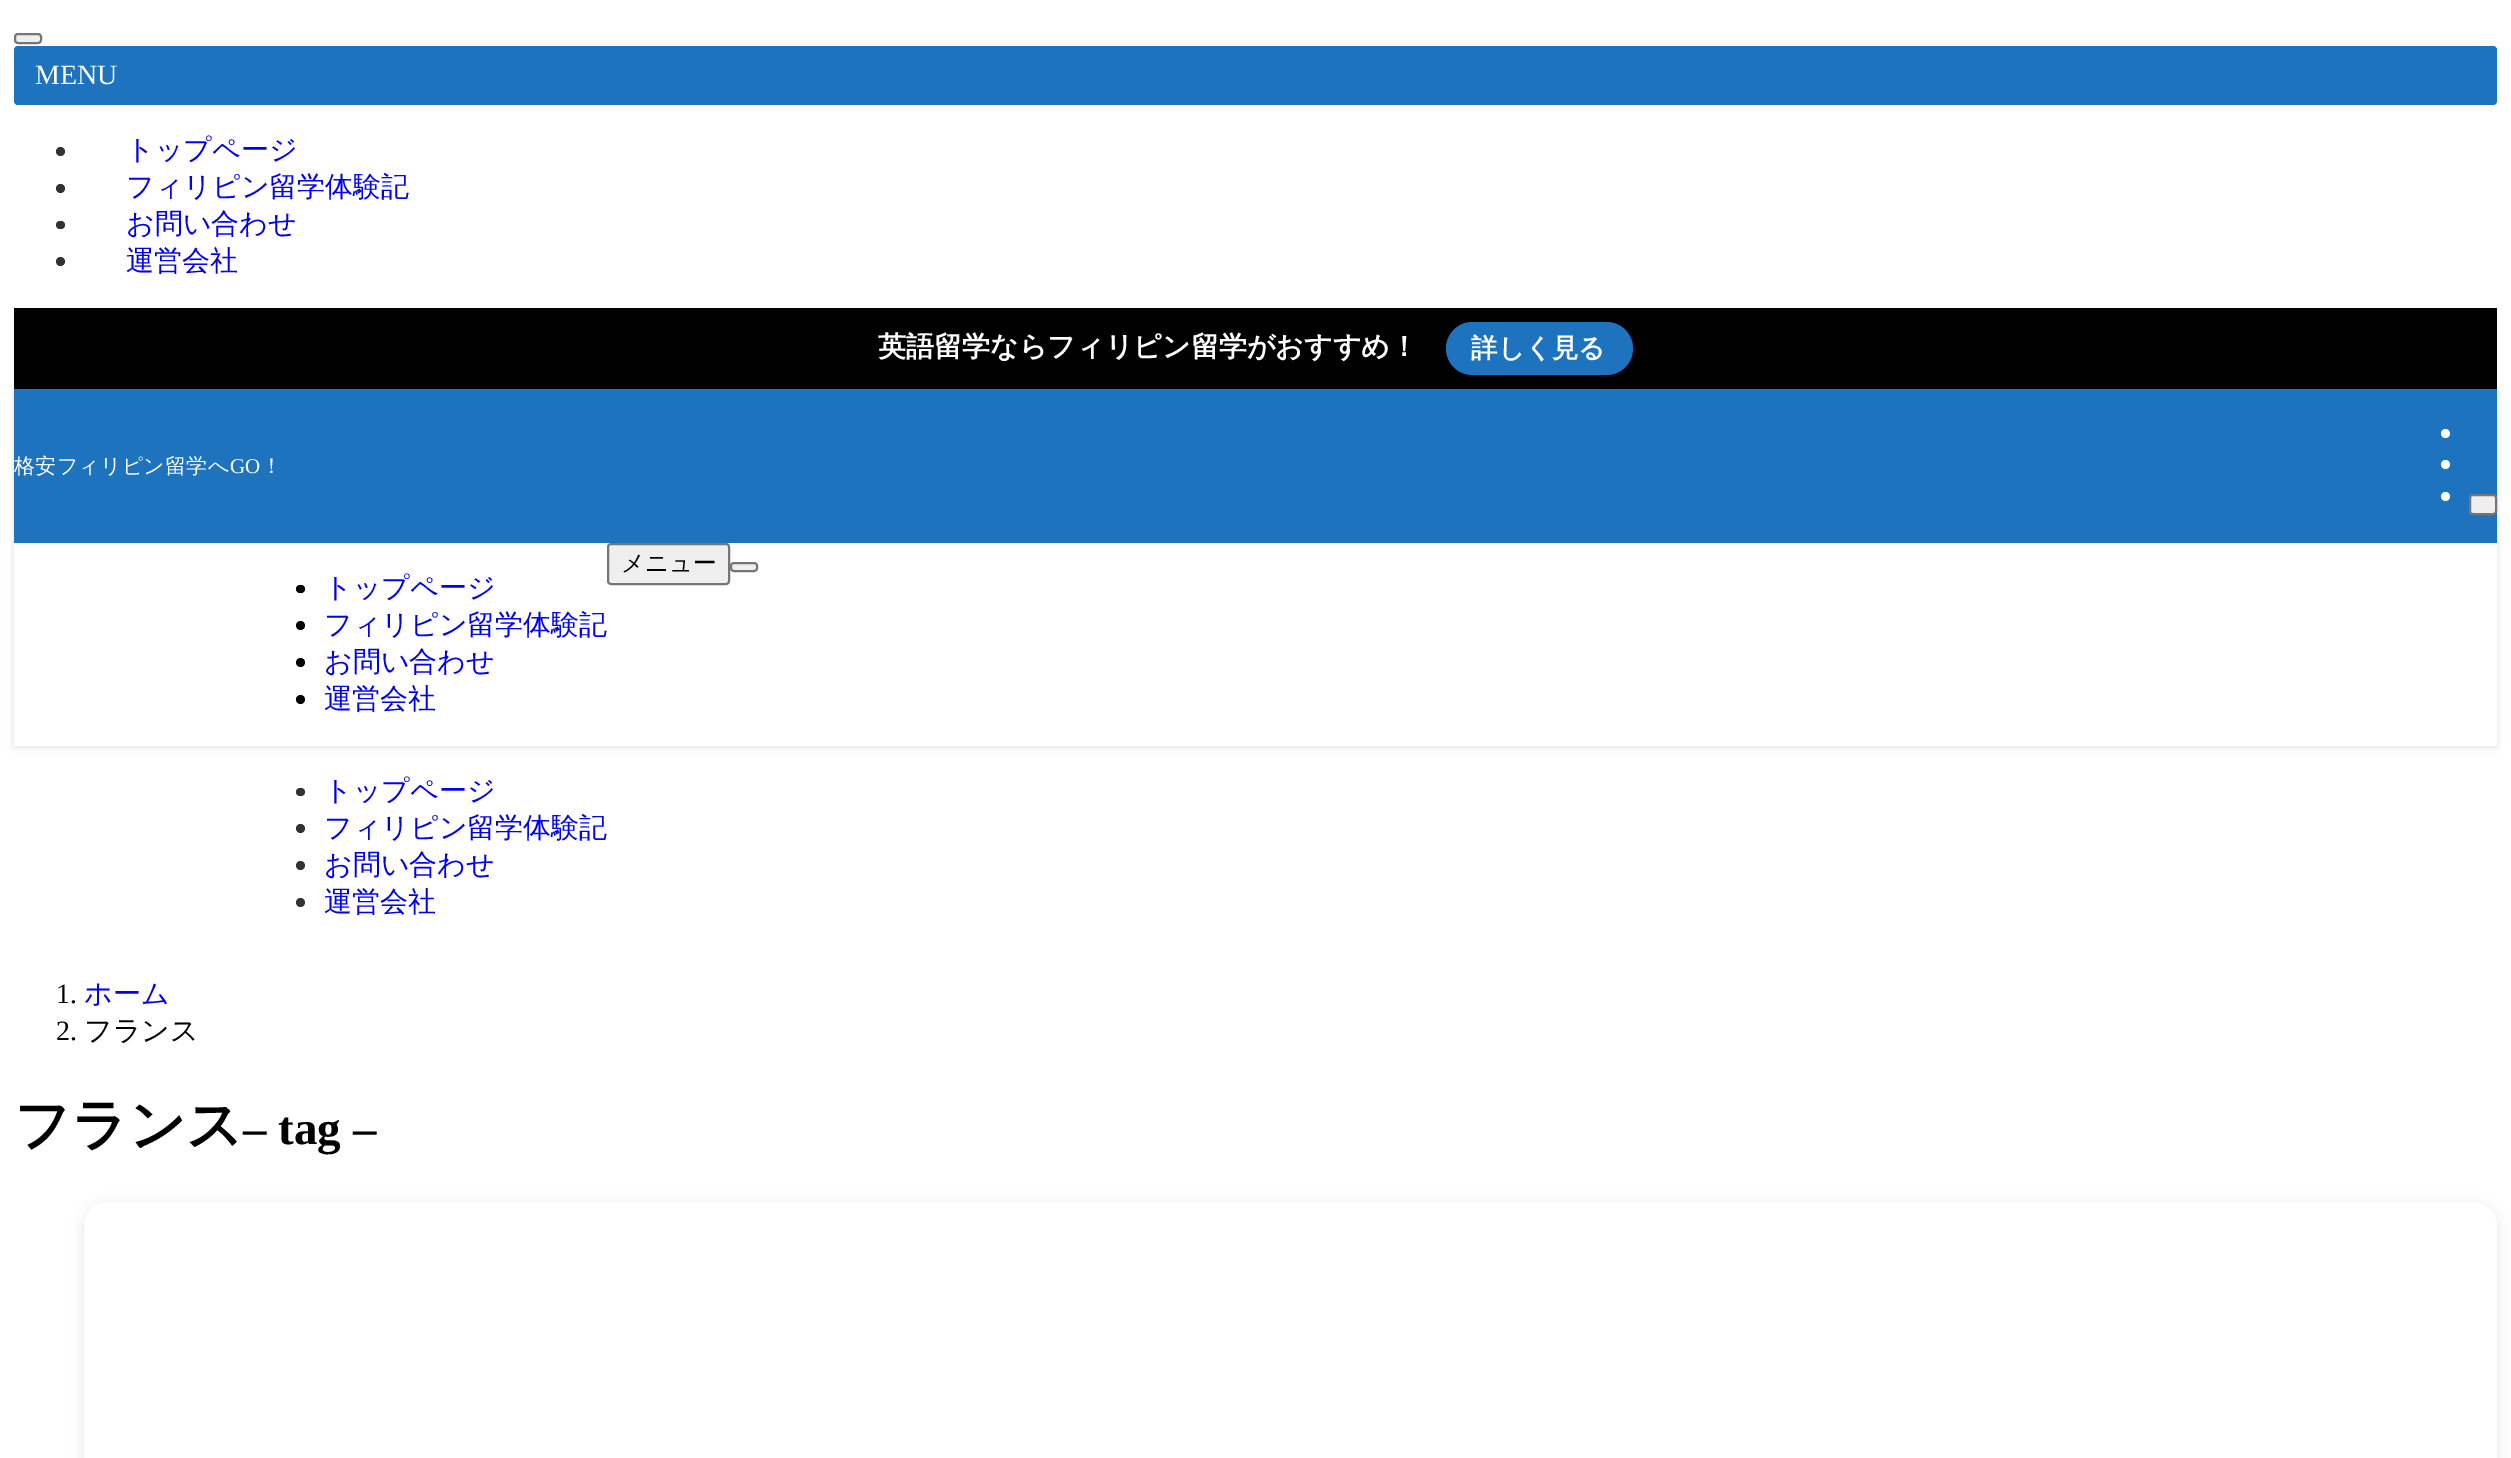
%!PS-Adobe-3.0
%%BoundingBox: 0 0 2511 1458
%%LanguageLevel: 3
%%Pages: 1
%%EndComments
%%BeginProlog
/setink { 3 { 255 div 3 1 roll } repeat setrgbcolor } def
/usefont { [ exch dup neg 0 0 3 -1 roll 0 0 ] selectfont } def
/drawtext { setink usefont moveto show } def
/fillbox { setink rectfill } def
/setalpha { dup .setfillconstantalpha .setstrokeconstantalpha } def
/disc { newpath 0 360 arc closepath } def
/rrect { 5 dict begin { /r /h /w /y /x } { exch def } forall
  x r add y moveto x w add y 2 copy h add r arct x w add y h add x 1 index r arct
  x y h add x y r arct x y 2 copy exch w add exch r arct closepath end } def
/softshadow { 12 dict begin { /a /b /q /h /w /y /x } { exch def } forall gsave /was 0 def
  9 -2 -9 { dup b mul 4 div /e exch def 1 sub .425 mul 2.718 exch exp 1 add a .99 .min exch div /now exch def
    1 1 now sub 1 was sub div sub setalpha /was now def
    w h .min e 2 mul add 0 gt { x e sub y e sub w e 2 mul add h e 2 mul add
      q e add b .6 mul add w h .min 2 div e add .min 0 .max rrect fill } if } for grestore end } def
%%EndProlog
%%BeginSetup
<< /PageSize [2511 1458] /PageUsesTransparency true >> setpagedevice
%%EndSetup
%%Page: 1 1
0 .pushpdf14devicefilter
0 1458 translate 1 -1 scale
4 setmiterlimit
0 0 2511 1458 255 255 255 fillbox
239 239 239 setink
15 34 26 9 3 rrect gsave fill grestore
118 118 118 setink
2 setlinewidth
stroke
30 115 190 setink
14 46 2483 59 4 rrect fill
(MENU) 35 84 /LiberationSerif-Regular 28 255 255 255 drawtext
51 51 51 setink
60.5 151.5 4.5 disc fill
(トップページ) 126 159 /WenQuanYiZenHei-Medium 28 0 0 238 drawtext
51 51 51 setink
60.5 188.5 4.5 disc fill
(フィリピン留学体験記) 126 196 /WenQuanYiZenHei-Medium 28 0 0 238 drawtext
51 51 51 setink
56 221 9 8 4 rrect fill
(お問い合わせ) 126 233 /WenQuanYiZenHei-Medium 28 0 0 238 drawtext
51 51 51 setink
60.5 261.5 4.5 disc fill
(運営会社) 126 270 /WenQuanYiZenHei-Medium 28 0 0 238 drawtext
gsave
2 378 moveto 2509 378 lineto 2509 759 lineto 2 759 lineto closepath 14 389 moveto 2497 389 lineto 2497 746 lineto 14 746 lineto closepath eoclip newpath
0 0 0 setink
14 390 2483 357 0 3.5 0.12 softshadow
grestore
14 308 2483 81 0 0 0 fillbox
(英語留学ならフィリピン留学がおすすめ！) 878 356 /WenQuanYiZenHei-Bold 28 255 255 255 drawtext
30 115 190 setink
1446 322 187 53 26.5 rrect fill
(詳しく見る) 1471 357 /WenQuanYiZenHei-Bold 26.5 255 255 255 drawtext
14 389 2483 154 30 115 190 fillbox
/WenQuanYiZenHei-Medium 21 usefont
255 255 255 setink
14 473 moveto 0.25 0 (格安フィリピン留学へ) ashow
/LiberationSerif-Regular 21 usefont
230 473 moveto 0.25 0 (GO) ashow
/WenQuanYiZenHei-Medium 21 usefont
261 473 moveto 0.25 0 (！) ashow
2445.5 433.5 4.5 disc fill
2445.5 464.5 4.5 disc fill
2445.5 496.5 4.5 disc fill
239 239 239 setink
2470 495 26 19 3 rrect gsave fill grestore
118 118 118 setink
stroke
239 239 239 setink
608 544 121 40 3 rrect gsave fill grestore
118 118 118 setink
stroke
(メニュー) 621 571 /WenQuanYiZenHei-Medium 23.5 0 0 0 drawtext
239 239 239 setink
731 563 26 8 3 rrect gsave fill grestore
118 118 118 setink
stroke
0 0 0 setink
296 585 9 8 4 rrect fill
(トップページ) 324 597 /WenQuanYiZenHei-Medium 28 0 0 238 drawtext
0 0 0 setink
300.5 625.5 4.5 disc fill
(フィリピン留学体験記) 324 634 /WenQuanYiZenHei-Medium 28 0 0 238 drawtext
0 0 0 setink
300.5 662.5 4.5 disc fill
(お問い合わせ) 324 671 /WenQuanYiZenHei-Medium 28 0 0 238 drawtext
0 0 0 setink
300.5 699.5 4.5 disc fill
(運営会社) 324 708 /WenQuanYiZenHei-Medium 28 0 0 238 drawtext
51 51 51 setink
296 788 9 8 4 rrect fill
(トップページ) 324 800 /WenQuanYiZenHei-Medium 28 0 0 238 drawtext
51 51 51 setink
300.5 828.5 4.5 disc fill
(フィリピン留学体験記) 324 837 /WenQuanYiZenHei-Medium 28 0 0 238 drawtext
51 51 51 setink
300.5 865.5 4.5 disc fill
(お問い合わせ) 324 874 /WenQuanYiZenHei-Medium 28 0 0 238 drawtext
51 51 51 setink
300.5 902.5 4.5 disc fill
(運営会社) 324 911 /WenQuanYiZenHei-Medium 28 0 0 238 drawtext
(1.) 56 1003 /LiberationSerif-Regular 28 0 0 0 drawtext
(ホーム) 84 1003 /WenQuanYiZenHei-Medium 28 0 0 238 drawtext
(2.) 56 1040 /LiberationSerif-Regular 28 0 0 0 drawtext
(フランス) 84 1040 /WenQuanYiZenHei-Medium 28 0 0 0 drawtext
(フランス) 14 1144 /WenQuanYiZenHei-Bold 56 0 0 0 drawtext
(– tag –) 243 1144 /LiberationSerif-Bold 47 0 0 0 drawtext
gsave
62 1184 moveto 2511 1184 lineto 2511 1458 lineto 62 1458 lineto closepath 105 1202 moveto 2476 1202 lineto 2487.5 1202 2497 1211.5 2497 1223 curveto 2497 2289 lineto 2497 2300.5 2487.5 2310 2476 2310 curveto 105 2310 lineto 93.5 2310 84 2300.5 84 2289 curveto 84 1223 lineto 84 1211.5 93.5 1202 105 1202 curveto closepath eoclip newpath
84 1206 2413 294 21 7 0.1 softshadow
grestore
.poppdf14devicefilter showpage
%%EOF
